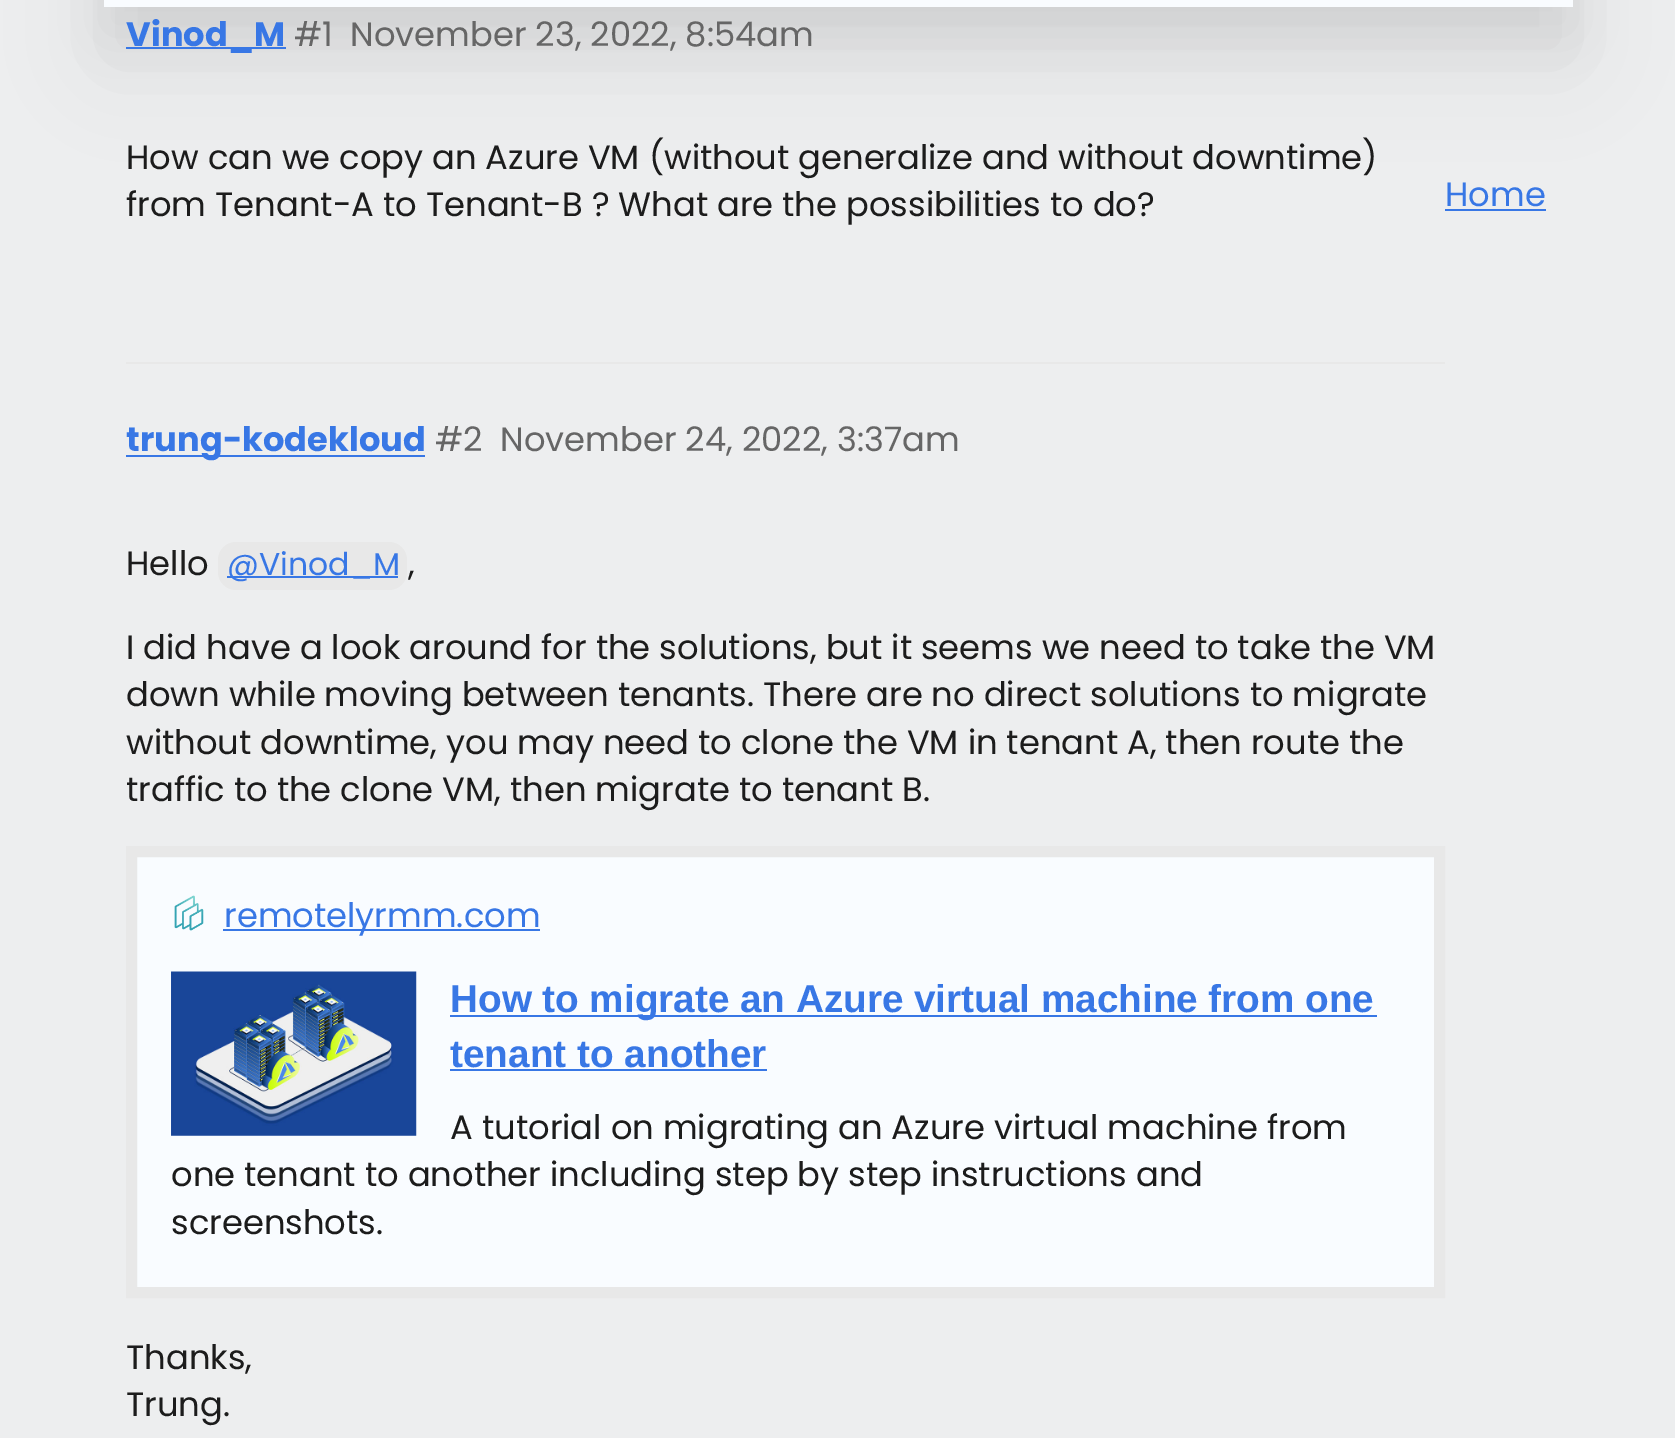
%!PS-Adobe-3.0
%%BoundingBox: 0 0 1675 1438
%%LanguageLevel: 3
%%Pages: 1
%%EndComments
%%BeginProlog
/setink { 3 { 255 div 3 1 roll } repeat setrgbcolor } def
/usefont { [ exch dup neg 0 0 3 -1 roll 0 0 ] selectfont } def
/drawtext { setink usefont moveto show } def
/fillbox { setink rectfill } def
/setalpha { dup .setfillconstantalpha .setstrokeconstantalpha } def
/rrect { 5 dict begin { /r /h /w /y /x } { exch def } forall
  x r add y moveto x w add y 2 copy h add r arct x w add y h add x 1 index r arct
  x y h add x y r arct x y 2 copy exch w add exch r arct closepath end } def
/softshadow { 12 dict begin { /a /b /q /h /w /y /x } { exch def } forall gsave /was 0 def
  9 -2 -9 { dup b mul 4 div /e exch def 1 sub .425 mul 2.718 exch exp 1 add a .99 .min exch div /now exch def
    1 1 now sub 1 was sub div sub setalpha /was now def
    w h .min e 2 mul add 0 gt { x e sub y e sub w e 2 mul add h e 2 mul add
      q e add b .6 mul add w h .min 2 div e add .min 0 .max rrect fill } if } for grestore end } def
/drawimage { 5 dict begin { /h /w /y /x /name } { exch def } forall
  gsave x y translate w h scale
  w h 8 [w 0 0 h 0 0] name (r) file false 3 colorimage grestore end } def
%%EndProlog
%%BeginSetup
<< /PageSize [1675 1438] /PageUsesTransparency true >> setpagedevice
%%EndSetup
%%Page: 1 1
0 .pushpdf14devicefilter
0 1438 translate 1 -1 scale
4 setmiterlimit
0 0 1675 1438 237 238 239 fillbox
0 0 0 setink
104 -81 1469 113 0 27 0.05 softshadow
104 -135 1469 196 0 45 0.07 softshadow
104 0 1469 7 249 252 255 fillbox
126 47 160 2 56 119 229 fillbox
(Vinod_M) 126 46 /Poppins-Bold 33.75 56 119 229 drawtext
(#1) 294 46 /Poppins-Regular 33.75 102 102 102 drawtext
(November 23, 2022, 8:54am) 350 46 /Poppins-Regular 33.75 102 102 102 drawtext
(How can we copy an Azure VM \(without generalize and without downtime\)) 126 169 /Poppins-Regular 33.75 28 28 28 drawtext
(from Tenant-A to Tenant-B ? What are the possibilities to do?) 126 216 /Poppins-Regular 33.75 28 28 28 drawtext
126 362 1319 2 232 232 232 fillbox
126 455 299 2 56 119 229 fillbox
(trung-kodekloud) 126 451 /Poppins-Bold 33.75 56 119 229 drawtext
(#2) 435 451 /Poppins-Regular 33.75 102 102 102 drawtext
(November 24, 2022, 3:37am) 500 451 /Poppins-Regular 33.75 102 102 102 drawtext
(Hello) 126 575 /Poppins-Regular 33.75 28 28 28 drawtext
232 232 232 setink
218 542 189 48 18 rrect fill
227 576 171 2 56 119 229 fillbox
(@Vinod_M) 227 575 /Poppins-Regular 31.5 56 119 229 drawtext
(,) 408 575 /Poppins-Regular 33.75 28 28 28 drawtext
(I did have a look around for the solutions, but it seems we need to take the VM) 126 659 /Poppins-Regular 33.75 28 28 28 drawtext
(down while moving between tenants. There are no direct solutions to migrate) 126 706 /Poppins-Regular 33.75 28 28 28 drawtext
(without downtime, you may need to clone the VM in tenant A, then route the) 126 754 /Poppins-Regular 33.75 28 28 28 drawtext
(traffic to the clone VM, then migrate to tenant B.) 126 801 /Poppins-Regular 33.75 28 28 28 drawtext
249 252 255 setink
131.5 851.5 moveto 1439.5 851.5 lineto 1439.5 1292.5 lineto 131.5 1292.5 lineto closepath gsave fill grestore
232 232 232 setink
11 setlinewidth
stroke
(assets/img1.rgb) 174 895 30 36 drawimage
223 929 317 2 56 119 229 fillbox
(remotelyrmm.com) 224 927 /Poppins-Regular 33.75 56 119 229 drawtext
(assets/img2.rgb) 171 971 246 165 drawimage
450 1015 927 2 56 119 229 fillbox
/LiberationSans-Bold 38.75 usefont
450 1012 moveto -0.25 0 32 (How to migrate an Azure virtual machine from one) widthshow
(tenant to another) 450 1067 /LiberationSans-Bold 38.75 56 119 229 drawtext
450 1069 317 2 56 119 229 fillbox
(A tutorial on migrating an Azure virtual machine from) 450 1139 /Poppins-Regular 33.75 28 28 28 drawtext
(one tenant to another including step by step instructions and) 171 1186 /Poppins-Regular 33.75 28 28 28 drawtext
(screenshots.) 171 1234 /Poppins-Regular 33.75 28 28 28 drawtext
(Thanks,) 126 1369 /Poppins-Regular 33.75 28 28 28 drawtext
(Trung.) 126 1416 /Poppins-Regular 33.75 28 28 28 drawtext
(Home) 1445 206 /Poppins-Regular 33.75 56 119 229 drawtext
1445 209 101 2 56 119 229 fillbox
.poppdf14devicefilter showpage
%%EOF
